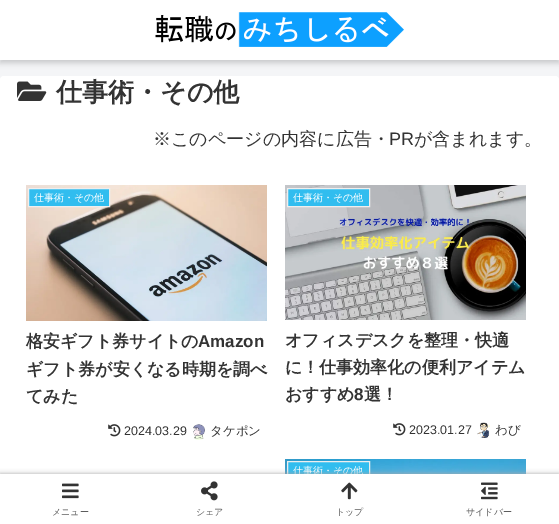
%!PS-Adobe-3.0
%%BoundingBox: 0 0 559 524
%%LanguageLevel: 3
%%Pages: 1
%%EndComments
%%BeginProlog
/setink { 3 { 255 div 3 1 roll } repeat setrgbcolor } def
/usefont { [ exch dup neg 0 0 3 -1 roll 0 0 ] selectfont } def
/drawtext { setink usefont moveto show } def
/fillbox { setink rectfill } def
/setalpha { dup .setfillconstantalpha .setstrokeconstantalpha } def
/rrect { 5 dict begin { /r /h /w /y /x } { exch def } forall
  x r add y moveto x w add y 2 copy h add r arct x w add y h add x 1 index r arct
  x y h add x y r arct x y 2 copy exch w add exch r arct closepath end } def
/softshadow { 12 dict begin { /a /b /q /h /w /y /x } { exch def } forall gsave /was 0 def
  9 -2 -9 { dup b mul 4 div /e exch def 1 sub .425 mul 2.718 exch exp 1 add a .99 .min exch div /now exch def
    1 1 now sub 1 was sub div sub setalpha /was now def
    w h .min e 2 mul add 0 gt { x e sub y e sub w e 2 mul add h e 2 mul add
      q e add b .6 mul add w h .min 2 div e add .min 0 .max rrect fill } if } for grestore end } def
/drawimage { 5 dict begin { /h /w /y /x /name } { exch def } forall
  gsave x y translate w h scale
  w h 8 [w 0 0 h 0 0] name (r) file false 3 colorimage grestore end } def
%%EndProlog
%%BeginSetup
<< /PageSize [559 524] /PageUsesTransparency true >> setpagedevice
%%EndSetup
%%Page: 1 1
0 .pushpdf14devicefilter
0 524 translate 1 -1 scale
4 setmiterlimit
0 0 559 524 244 245 247 fillbox
0 0 0 setink
0 3 559 60 0 3 0.18 softshadow
0 0 559 60 255 255 255 fillbox
(assets/img1.rgb) 155 12 249 35 drawimage
0 76 559 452 4 rrect fill
(assets/img2.rgb) 17 81 30 20 drawimage
(仕事術・その他) 56 101 /WenQuanYiZenHei-Bold 26 51 51 51 drawtext
(※このページの内容に広告・) 153 145 /WenQuanYiZenHei-Medium 18 51 51 51 drawtext
(PR) 389 145 /LiberationSans-Regular 18 51 51 51 drawtext
(が含まれます。) 414 145 /WenQuanYiZenHei-Medium 18 51 51 51 drawtext
(assets/img3.rgb) 26 185 241 136 drawimage
49 189 239 setink
28.5 188.5 moveto 109.5 188.5 lineto 109.5 206.5 lineto 28.5 206.5 lineto closepath gsave fill grestore
238 238 238 setink
stroke
(仕事術・その他) 34 201 /WenQuanYiZenHei-Medium 10 255 255 255 drawtext
(格安ギフト券サイトの) 26 347 /WenQuanYiZenHei-Bold 17 51 51 51 drawtext
(Amazon) 198 347 /LiberationSans-Bold 17 51 51 51 drawtext
(ギフト券が安くなる時期を調べ) 26 375 /WenQuanYiZenHei-Bold 17 51 51 51 drawtext
(てみた) 26 402 /WenQuanYiZenHei-Bold 17 51 51 51 drawtext
(assets/img4.rgb) 108 424 13 13 drawimage
(2024.03.29) 124 435 /LiberationSans-Regular 12.5 51 51 51 drawtext
(assets/img5.rgb) 193 424 12 16 drawimage
(タケポン) 210 435 /WenQuanYiZenHei-Medium 12.5 51 51 51 drawtext
(assets/img6.rgb) 285 185 241 135 drawimage
49 189 239 setink
287.5 188.5 moveto 369.5 188.5 lineto 369.5 206.5 lineto 287.5 206.5 lineto closepath gsave fill grestore
238 238 238 setink
stroke
(仕事術・その他) 293 201 /WenQuanYiZenHei-Medium 10 255 255 255 drawtext
(オフィスデスクを整理・快適) 285 346 /WenQuanYiZenHei-Bold 17 51 51 51 drawtext
(に！仕事効率化の便利アイテム) 285 373 /WenQuanYiZenHei-Bold 17 51 51 51 drawtext
(おすすめ) 285 400 /WenQuanYiZenHei-Bold 17 51 51 51 drawtext
(8) 354 400 /LiberationSans-Bold 17 51 51 51 drawtext
(選！) 364 400 /WenQuanYiZenHei-Bold 17 51 51 51 drawtext
(assets/img4.rgb) 393 423 13 13 drawimage
(2023.01.27) 409 434 /LiberationSans-Regular 12.5 51 51 51 drawtext
(assets/img7.rgb) 477 422 13 16 drawimage
(わび) 495 434 /WenQuanYiZenHei-Medium 12.5 51 51 51 drawtext
(assets/img8.rgb) 285 459 241 15 drawimage
288 462 81 12 49 189 239 fillbox
238 238 238 setink
287.5 461.5 82 18 rectstroke
(仕事術・その他) 293 474 /WenQuanYiZenHei-Medium 10 255 255 255 drawtext
169 169 169 setink
0 474 559 50 0 2.5 1 softshadow
0 474 559 50 255 255 255 fillbox
(assets/img9.rgb) 62 483 17 16 drawimage
(メニュー) 52 515 /WenQuanYiZenHei-Medium 9 92 92 92 drawtext
(assets/img10.rgb) 201 481 17 20 drawimage
(シェア) 196 515 /WenQuanYiZenHei-Medium 9 92 92 92 drawtext
(assets/img11.rgb) 341 482 17 18 drawimage
(トップ) 336 515 /WenQuanYiZenHei-Medium 9 92 92 92 drawtext
(assets/img12.rgb) 481 482 17 18 drawimage
(サイドバー) 466 515 /WenQuanYiZenHei-Medium 9 92 92 92 drawtext
.poppdf14devicefilter showpage
%%EOF
